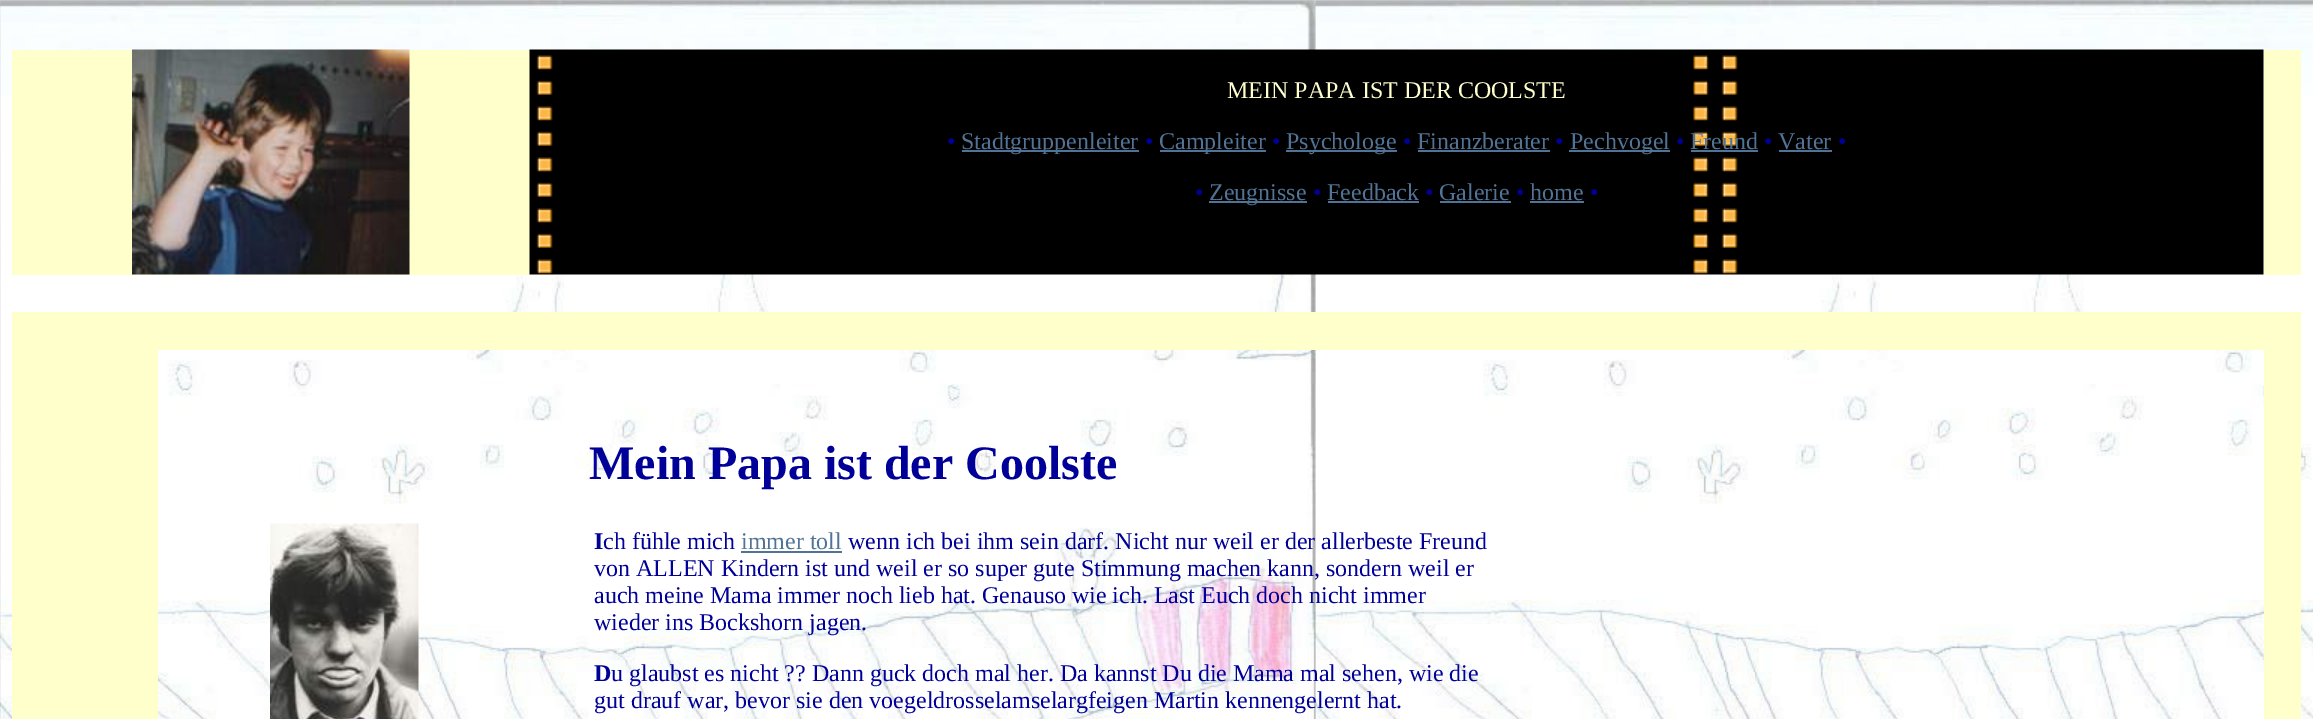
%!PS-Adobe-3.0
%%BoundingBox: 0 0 2313 719
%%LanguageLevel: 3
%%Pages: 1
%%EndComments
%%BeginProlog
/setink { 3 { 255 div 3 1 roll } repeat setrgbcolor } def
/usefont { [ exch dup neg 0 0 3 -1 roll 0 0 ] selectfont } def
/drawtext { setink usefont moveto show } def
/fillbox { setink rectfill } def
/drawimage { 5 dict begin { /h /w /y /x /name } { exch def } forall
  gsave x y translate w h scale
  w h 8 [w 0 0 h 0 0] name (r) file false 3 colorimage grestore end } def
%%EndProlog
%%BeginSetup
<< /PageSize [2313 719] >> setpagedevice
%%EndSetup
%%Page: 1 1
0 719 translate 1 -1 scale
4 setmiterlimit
0 0 2313 719 255 255 255 fillbox
(assets/img1.rgb) 0 0 2313 719 drawimage
12 50 518 225 255 255 204 fillbox
(assets/img2.rgb) 132 49 278 226 drawimage
(assets/img3.rgb) 529 49 1735 226 drawimage
(MEIN PAPA IST DER COOLSTE) 1227 98 /LiberationSerif-Regular 24 255 255 204 drawtext
(•) 947 149 /LiberationSerif-Regular 24 0 0 153 drawtext
962 150 177 2 81 116 150 fillbox
(Stadtgruppenleiter) 961 149 /LiberationSerif-Regular 24 81 116 150 drawtext
(•) 1145 149 /LiberationSerif-Regular 24 0 0 153 drawtext
1160 150 106 2 81 116 150 fillbox
(Campleiter) 1159 149 /LiberationSerif-Regular 24 81 116 150 drawtext
(•) 1272 149 /LiberationSerif-Regular 24 0 0 153 drawtext
1286 150 111 2 81 116 150 fillbox
(Psychologe) 1286 149 /LiberationSerif-Regular 24 81 116 150 drawtext
(•) 1403 149 /LiberationSerif-Regular 24 0 0 153 drawtext
(Finanzberater) 1417 149 /LiberationSerif-Regular 24 81 116 150 drawtext
1418 150 132 2 81 116 150 fillbox
(•) 1555 149 /LiberationSerif-Regular 24 0 0 153 drawtext
1569 150 101 2 81 116 150 fillbox
(Pechvogel) 1570 149 /LiberationSerif-Regular 24 81 116 150 drawtext
(•) 1676 149 /LiberationSerif-Regular 24 0 0 153 drawtext
(Freund) 1690 149 /LiberationSerif-Regular 24 81 116 150 drawtext
1691 150 67 2 81 116 150 fillbox
(•) 1764 149 /LiberationSerif-Regular 24 0 0 153 drawtext
(Vater) 1778 149 /LiberationSerif-Regular 24 81 116 150 drawtext
1779 150 53 2 81 116 150 fillbox
(•) 1838 149 /LiberationSerif-Regular 24 0 0 153 drawtext
(•) 1195 200 /LiberationSerif-Regular 24 0 0 153 drawtext
1209 201 98 2 81 116 150 fillbox
(Zeugnisse) 1209 200 /LiberationSerif-Regular 24 81 116 150 drawtext
(•) 1313 200 /LiberationSerif-Regular 24 0 0 153 drawtext
(Feedback) 1327 200 /LiberationSerif-Regular 24 81 116 150 drawtext
1328 201 91 2 81 116 150 fillbox
(•) 1425 200 /LiberationSerif-Regular 24 0 0 153 drawtext
(Galerie) 1439 200 /LiberationSerif-Regular 24 81 116 150 drawtext
1440 201 71 2 81 116 150 fillbox
(•) 1516 200 /LiberationSerif-Regular 24 0 0 153 drawtext
(home) 1530 200 /LiberationSerif-Regular 24 81 116 150 drawtext
1530 201 54 2 81 116 150 fillbox
(•) 1590 200 /LiberationSerif-Regular 24 0 0 153 drawtext
2264 50 37 225 255 255 204 fillbox
12 312 2289 38 255 255 204 fillbox
12 350 146 369 255 255 204 fillbox
(assets/img4.rgb) 270 523 149 196 drawimage
(Mein Papa ist der Coolste) 589 479 /LiberationSerif-Bold 48 0 0 153 drawtext
(I) 594 549 /LiberationSerif-Bold 24 0 0 153 drawtext
(ch fühle mich) 603 549 /LiberationSerif-Regular 24 0 0 153 drawtext
(immer toll) 741 549 /LiberationSerif-Regular 24 81 116 150 drawtext
741 551 101 2 81 116 150 fillbox
(wenn ich bei ihm sein darf. Nicht nur weil er der allerbeste Freund) 848 549 /LiberationSerif-Regular 24 0 0 153 drawtext
(von ALLEN Kindern ist und weil er so super gute Stimmung machen kann, sondern weil er) 594 576 /LiberationSerif-Regular 24 0 0 153 drawtext
(auch meine Mama immer noch lieb hat. Genauso wie ich. Last Euch doch nicht immer) 594 603 /LiberationSerif-Regular 24 0 0 153 drawtext
(wieder ins Bockshorn jagen.) 594 630 /LiberationSerif-Regular 24 0 0 153 drawtext
(D) 594 681 /LiberationSerif-Bold 24 0 0 153 drawtext
(u glaubst es nicht ?? Dann guck doch mal her. Da kannst Du die Mama mal sehen, wie die) 611 681 /LiberationSerif-Regular 24 0 0 153 drawtext
(gut drauf war, bevor sie den voegeldrosselamselargfeigen Martin kennengelernt hat.) 594 708 /LiberationSerif-Regular 24 0 0 153 drawtext
2264 350 37 369 255 255 204 fillbox
showpage
%%EOF
